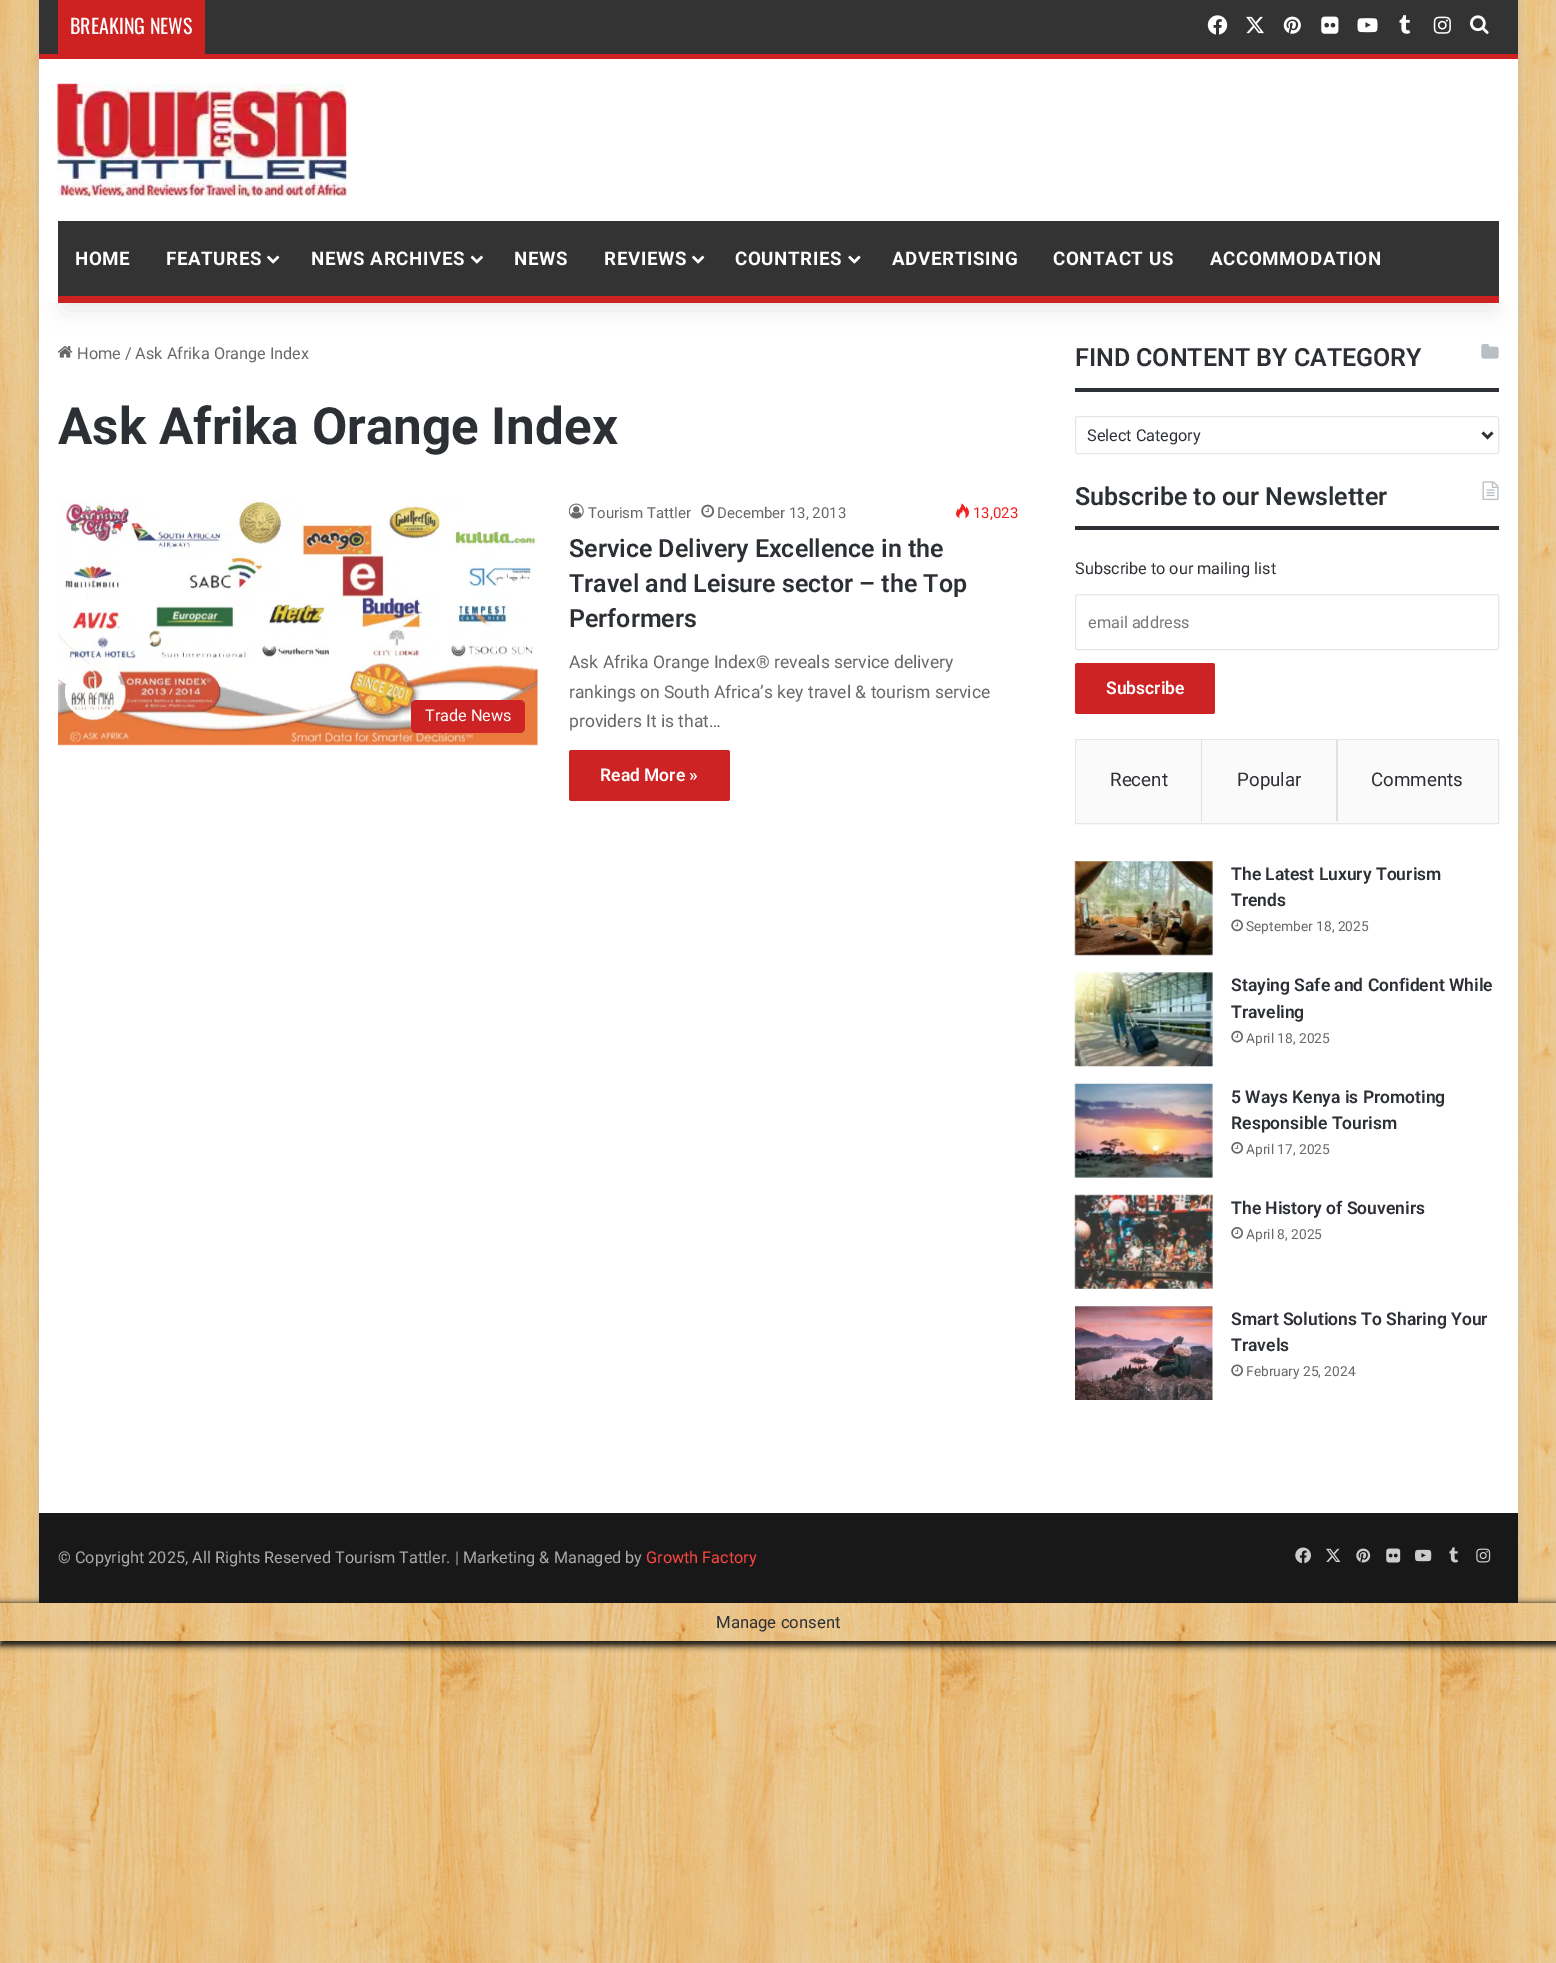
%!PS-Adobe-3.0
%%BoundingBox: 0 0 1556 1963
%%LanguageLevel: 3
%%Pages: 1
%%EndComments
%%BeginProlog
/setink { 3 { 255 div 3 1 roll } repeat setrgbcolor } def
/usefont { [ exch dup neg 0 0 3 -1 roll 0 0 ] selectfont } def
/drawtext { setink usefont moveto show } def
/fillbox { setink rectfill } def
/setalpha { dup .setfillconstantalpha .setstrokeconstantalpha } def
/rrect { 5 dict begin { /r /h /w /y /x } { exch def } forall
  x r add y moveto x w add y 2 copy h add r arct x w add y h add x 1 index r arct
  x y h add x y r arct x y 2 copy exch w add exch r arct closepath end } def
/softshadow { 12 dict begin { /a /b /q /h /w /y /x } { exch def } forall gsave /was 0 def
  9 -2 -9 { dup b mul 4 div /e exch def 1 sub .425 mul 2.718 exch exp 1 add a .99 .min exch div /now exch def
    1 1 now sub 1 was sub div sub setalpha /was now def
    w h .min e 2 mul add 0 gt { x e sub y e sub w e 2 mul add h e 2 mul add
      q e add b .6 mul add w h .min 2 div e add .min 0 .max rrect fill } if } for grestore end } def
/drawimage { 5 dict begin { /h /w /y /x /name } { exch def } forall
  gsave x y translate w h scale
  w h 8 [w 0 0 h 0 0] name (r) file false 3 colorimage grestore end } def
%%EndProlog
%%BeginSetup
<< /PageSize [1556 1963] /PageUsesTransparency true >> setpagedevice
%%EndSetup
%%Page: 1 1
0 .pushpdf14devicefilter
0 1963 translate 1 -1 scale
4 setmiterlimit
0 0 1556 1963 255 255 255 fillbox
(assets/img1.rgb) 0 0 1556 1963 drawimage
gsave
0 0 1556 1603 rectclip
171 171 171 setink
39 1 1479 1603 0 4.5 0.5 softshadow
grestore
39 303 1479 1210 255 255 255 fillbox
(assets/img14.rgb) 57 346 16 12 drawimage
(assets/img19.rgb) 1481 343 18 16 drawimage
0 0 0 setink
64 56 1429 253 0 12.5 0.1 softshadow
39 59 1479 244 255 255 255 fillbox
39 0 1479 54 51 51 51 fillbox
39 54 1479 5 205 33 34 fillbox
58 0 147 54 205 33 34 fillbox
(BREAKING NEWS) 70 34 /Oswald-Regular 20 255 255 255 drawtext
(assets/img2.rgb) 1207 15 21 20 drawimage
(assets/img3.rgb) 1246 16 18 18 drawimage
(assets/img4.rgb) 1283 16 18 18 drawimage
(assets/img5.rgb) 1321 16 18 18 drawimage
(assets/img6.rgb) 1357 18 21 15 drawimage
(assets/img7.rgb) 1399 15 12 19 drawimage
(assets/img8.rgb) 1433 16 18 18 drawimage
(assets/img9.rgb) 1470 15 19 19 drawimage
(assets/img10.rgb) 57 83 290 114 drawimage
58 221 1441 75 51 51 51 fillbox
58 296 1441 7 205 33 34 fillbox
/Roboto-Bold 18.75 usefont
255 255 255 setink
75 265 moveto 0.6 0 (HOME) ashow
166 265 moveto 0.6 0 (FEATURES) ashow
(assets/img11.rgb) 267 255 13 9 drawimage
311 265 moveto 0.6 0 (NEWS ARCHIVES) ashow
(assets/img12.rgb) 470 255 13 9 drawimage
514 265 moveto 0.6 0 (NEWS) ashow
604 265 moveto 0.6 0 (REVIEWS) ashow
(assets/img11.rgb) 692 255 13 9 drawimage
735 265 moveto 0.6 0 (COUNTRIES) ashow
(assets/img13.rgb) 848 255 13 9 drawimage
892 265 moveto 0.6 0 (ADVERTISING) ashow
1053 265 moveto 0.6 0 (CONTACT US) ashow
1210 265 moveto 0.6 0 (ACCOMMODATION) ashow
(Home / Ask Afrika Orange Index) 77 359 /Roboto-Regular 16.25 104 104 104 drawtext
(Ask Afrika Orange Index) 58 444 /Roboto-Bold 51.25 44 47 52 drawtext
(assets/img15.rgb) 58 500 480 246 drawimage
206 35 36 setink
411 700 114 33 5 rrect fill
(Trade News) 425 721 /Roboto-Regular 16.25 255 255 255 drawtext
(assets/img16.rgb) 569 503 15 16 drawimage
(Tourism Tattler) 588 518 /Roboto-Regular 15 104 104 104 drawtext
(assets/img17.rgb) 701 504 14 14 drawimage
(December 13, 2013) 717 518 /Roboto-Regular 15 104 104 104 drawtext
(assets/img18.rgb) 956 503 13 16 drawimage
(13,023) 973 518 /Roboto-Regular 15 241 32 32 drawtext
(Service Delivery Excellence in the) 569 557 /Roboto-SemiBold 25 44 47 52 drawtext
(Travel and Leisure sector – the Top) 569 592 /Roboto-SemiBold 25 44 47 52 drawtext
(Performers) 569 627 /Roboto-SemiBold 25 44 47 52 drawtext
(Ask Afrika Orange Index® reveals service delivery) 569 668 /Roboto-Regular 17.5 104 104 104 drawtext
(rankings on South Africa’s key travel & tourism service) 569 698 /Roboto-Regular 17.5 104 104 104 drawtext
(providers It is that…) 569 727 /Roboto-Regular 17.5 104 104 104 drawtext
206 35 36 setink
569 750 161 51 2.5 rrect fill
(Read More ») 600 781 /Roboto-SemiBold 17.5 255 255 255 drawtext
1075 388 424 4 46 49 54 fillbox
(FIND CONTENT BY CATEGORY) 1075 366 /Roboto-SemiBold 25 44 47 52 drawtext
230 230 230 setink
1075.5 416.5 423 37 2 rrect stroke
46 49 54 setink
2.5 setlinewidth
1482.5 432.5 moveto 1487.5 437.5 lineto 1492.5 432.5 lineto stroke
(Select Category) 1087 441 /Roboto-Regular 16.25 44 47 52 drawtext
1075 526 424 4 46 49 54 fillbox
(Subscribe to our Newsletter) 1075 505 /Roboto-SemiBold 25 44 47 52 drawtext
(assets/img20.rgb) 1482 481 17 20 drawimage
(Subscribe to our mailing list) 1075 574 /Roboto-Regular 16.25 44 47 52 drawtext
230 230 230 setink
1 setlinewidth
1075.5 594.5 423 55 2 rrect stroke
(email address) 1088 628 /Roboto-Regular 16.25 118 118 118 drawtext
206 35 36 setink
1075 663 140 51 2.5 rrect fill
(Subscribe) 1106 694 /Roboto-SemiBold 17.5 255 255 255 drawtext
230 230 230 setink
1075.5 739.5 423 84 rectstroke
1076 740 422 83 250 250 250 fillbox
225 225 225 setink
1202 740 moveto 1202 822 lineto 1201 821 lineto 1201 740 lineto closepath fill
(Recent) 1110 786 /Roboto-Regular 18.75 44 47 52 drawtext
225 225 225 setink
1338 740 moveto 1338 822 lineto 1336 821 lineto 1336 740 lineto closepath fill
(Popular) 1237 786 /Roboto-Regular 18.75 44 47 52 drawtext
(Comments) 1371 786 /Roboto-Regular 18.75 44 47 52 drawtext
(assets/img21.rgb) 1074 861 139 95 drawimage
(The Latest Luxury Tourism) 1231 880 /Roboto-SemiBold 17.5 44 47 52 drawtext
(Trends) 1231 906 /Roboto-SemiBold 17.5 44 47 52 drawtext
(assets/img22.rgb) 1231 919 12 13 drawimage
(September 18, 2025) 1246 931 /Roboto-Regular 13.75 104 104 104 drawtext
(assets/img23.rgb) 1074 972 139 95 drawimage
(Staying Safe and Confident While) 1231 991 /Roboto-SemiBold 17.5 44 47 52 drawtext
(Traveling) 1231 1018 /Roboto-SemiBold 17.5 44 47 52 drawtext
(assets/img24.rgb) 1231 1030 12 13 drawimage
(April 18, 2025) 1246 1043 /Roboto-Regular 13.75 104 104 104 drawtext
(assets/img25.rgb) 1074 1083 139 95 drawimage
(5 Ways Kenya is Promoting) 1231 1103 /Roboto-SemiBold 17.5 44 47 52 drawtext
(Responsible Tourism) 1231 1129 /Roboto-SemiBold 17.5 44 47 52 drawtext
(assets/img26.rgb) 1231 1142 12 12 drawimage
(April 17, 2025) 1246 1154 /Roboto-Regular 13.75 104 104 104 drawtext
(assets/img27.rgb) 1074 1194 139 95 drawimage
(The History of Souvenirs) 1231 1214 /Roboto-SemiBold 17.5 44 47 52 drawtext
(assets/img26.rgb) 1231 1227 12 12 drawimage
(April 8, 2025) 1246 1239 /Roboto-Regular 13.75 104 104 104 drawtext
(assets/img28.rgb) 1075 1306 138 94 drawimage
(Smart Solutions To Sharing Your) 1231 1325 /Roboto-SemiBold 17.5 44 47 52 drawtext
(Travels) 1231 1351 /Roboto-SemiBold 17.5 44 47 52 drawtext
(assets/img22.rgb) 1231 1364 12 13 drawimage
(February 25, 2024) 1246 1376 /Roboto-Regular 13.75 104 104 104 drawtext
gsave
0 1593 moveto 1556 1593 lineto 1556 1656 lineto 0 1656 lineto closepath 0 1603 moveto 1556 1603 lineto 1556 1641 lineto 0 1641 lineto closepath eoclip newpath
22 22 22 setink
0 1603 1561 43 0 3 1 softshadow
grestore
39 1513 1479 90 24 24 24 fillbox
(© Copyright 2025, All Rights Reserved Tourism Tattler. | Marketing & Managed by) 58 1563 /Roboto-Regular 16.25 170 170 170 drawtext
(Growth Factory) 646 1563 /Roboto-Regular 16.25 254 70 65 drawtext
(assets/img29.rgb) 1295 1547 16 17 drawimage
(assets/img30.rgb) 1326 1548 15 14 drawimage
(assets/img31.rgb) 1356 1548 15 15 drawimage
(assets/img32.rgb) 1386 1548 15 15 drawimage
(assets/img33.rgb) 1415 1549 17 13 drawimage
(assets/img34.rgb) 1449 1547 9 16 drawimage
(assets/img35.rgb) 1476 1548 15 15 drawimage
(Manage consent) 716 1628 /Roboto-Regular 16.75 44 47 52 drawtext
.poppdf14devicefilter showpage
%%EOF
